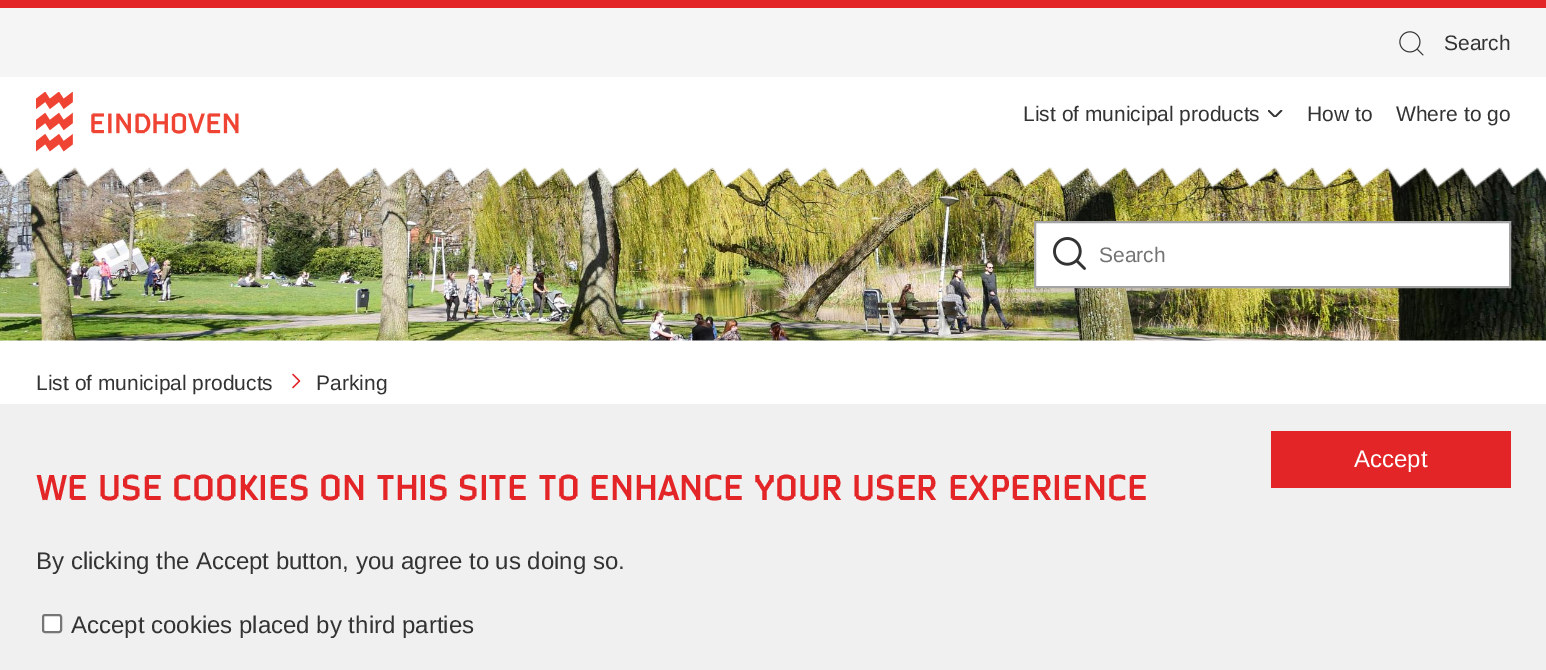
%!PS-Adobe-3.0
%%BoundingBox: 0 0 1546 670
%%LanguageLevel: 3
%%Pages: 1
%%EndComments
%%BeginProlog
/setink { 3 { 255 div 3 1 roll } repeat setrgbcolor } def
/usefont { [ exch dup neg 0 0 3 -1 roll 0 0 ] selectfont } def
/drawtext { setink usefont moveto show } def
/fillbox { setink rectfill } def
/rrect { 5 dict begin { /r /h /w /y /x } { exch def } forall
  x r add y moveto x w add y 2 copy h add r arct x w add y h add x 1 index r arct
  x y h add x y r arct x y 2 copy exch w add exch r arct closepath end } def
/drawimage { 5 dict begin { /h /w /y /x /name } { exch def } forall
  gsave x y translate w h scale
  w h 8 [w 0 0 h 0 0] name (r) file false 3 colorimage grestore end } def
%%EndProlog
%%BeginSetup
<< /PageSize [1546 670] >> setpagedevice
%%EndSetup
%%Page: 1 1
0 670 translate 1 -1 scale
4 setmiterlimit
0 0 1546 670 255 255 255 fillbox
0 0 1546 8 227 37 39 fillbox
0 8 1546 69 245 245 245 fillbox
(assets/img1.rgb) 1399 31 25 25 drawimage
(Search) 1444 50 /LiberationSans-Regular 21 51 51 51 drawtext
(assets/img2.rgb) 36 92 203 60 drawimage
(List of municipal products) 1023 121 /LiberationSans-Regular 21 51 51 51 drawtext
(assets/img3.rgb) 1268 110 15 7 drawimage
(How to) 1307 121 /LiberationSans-Regular 21 51 51 51 drawtext
(Where to go) 1396 121 /LiberationSans-Regular 21 51 51 51 drawtext
(assets/img5.rgb) 0 167 1546 174 drawimage
(assets/img4.rgb) 0 167 1546 26 drawimage
0 404 1546 266 240 240 240 fillbox
1271 431 240 57 227 37 39 fillbox
(Accept) 1354 467 /LiberationSans-Regular 24 255 255 255 drawtext
(We use cookies on this site to enhance your user experience) 36 500 /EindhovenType-Regular 36 227 37 39 drawtext
/LiberationSans-Regular 24 usefont
51 51 51 setink
36 569 moveto -0.1 0 32 (By clicking the Accept button, you agree to us doing so.) widthshow
255 255 255 setink
43 615 18 17 2 rrect gsave fill grestore
118 118 118 setink
2 setlinewidth
stroke
(Accept cookies placed by third parties) 71 633 /LiberationSans-Regular 24 51 51 51 drawtext
255 255 255 setink
1035 222 moveto 1510 222 lineto 1510 287 lineto 1035 287 lineto closepath gsave fill grestore
164 164 164 setink
stroke
(assets/img6.rgb) 1053 237 33 33 drawimage
(Search) 1099 262 /LiberationSans-Regular 21 115 115 115 drawtext
(List of municipal products) 36 390 /LiberationSans-Regular 21 51 51 51 drawtext
227 37 39 setink
1.3 setlinewidth
1 setlinecap
1 setlinejoin
293 374.5 moveto 299.5 381 lineto 293 387.5 lineto stroke
(Parking) 316 390 /LiberationSans-Regular 21 51 51 51 drawtext
showpage
%%EOF
